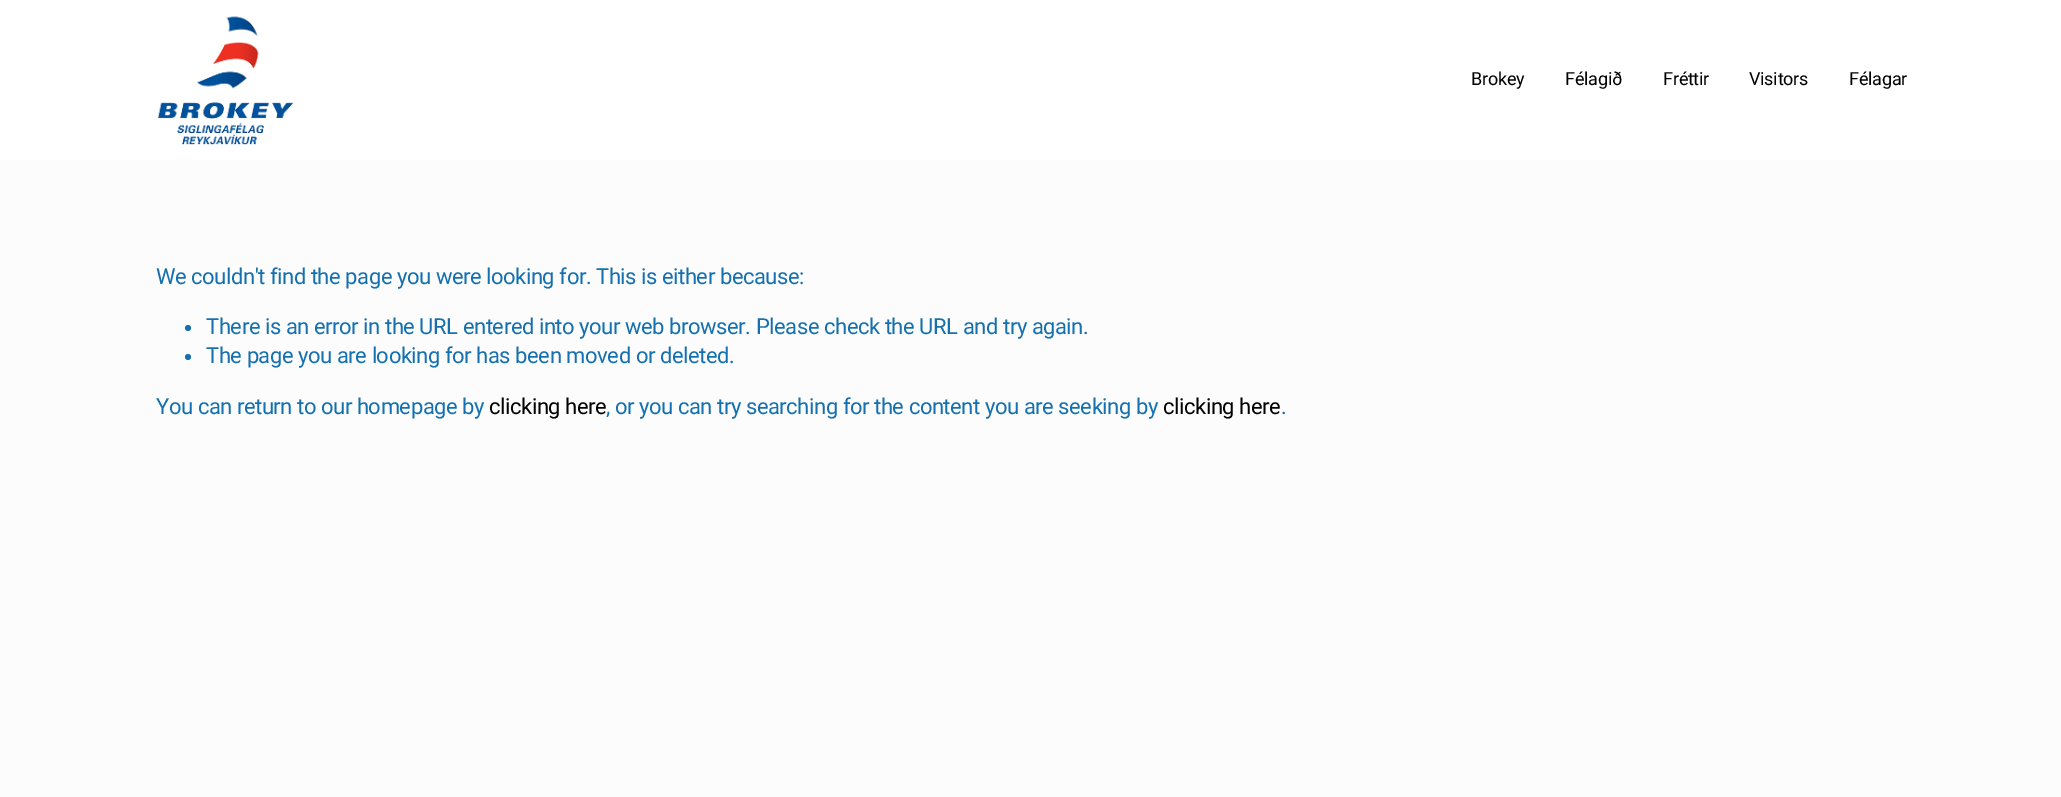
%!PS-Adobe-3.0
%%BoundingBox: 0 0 2061 797
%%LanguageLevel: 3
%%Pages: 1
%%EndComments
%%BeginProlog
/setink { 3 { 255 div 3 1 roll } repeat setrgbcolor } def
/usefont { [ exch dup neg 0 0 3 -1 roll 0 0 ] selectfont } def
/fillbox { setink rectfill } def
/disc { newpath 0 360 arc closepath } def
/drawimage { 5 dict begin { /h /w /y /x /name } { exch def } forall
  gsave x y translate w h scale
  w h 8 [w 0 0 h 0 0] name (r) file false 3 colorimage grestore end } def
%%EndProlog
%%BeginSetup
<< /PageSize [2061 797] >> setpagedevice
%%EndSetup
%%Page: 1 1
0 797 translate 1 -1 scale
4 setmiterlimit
0 0 2061 797 252 252 252 fillbox
0 0 2061 160 255 255 255 fillbox
(assets/img1.rgb) 157 16 137 129 drawimage
/Roboto-Regular 18 usefont
0 0 0 setink
1471 85 moveto -0.25 0 (Brokey) ashow
1565 85 moveto -0.25 0 (Félagið) ashow
1663 85 moveto -0.25 0 (Fréttir) ashow
1749 85 moveto -0.25 0 (Visitors) ashow
1849 85 moveto -0.25 0 (Félagar) ashow
/Roboto-Regular 22 usefont
20 112 175 setink
156 284 moveto -0.45 0 (We couldn't find the page you were looking for. This is either because:) ashow
188 328 3 disc fill
206 334 moveto -0.45 0 (There is an error in the URL entered into your web browser. Please check the URL and try again.) ashow
188 357 3 disc fill
206 363 moveto -0.45 0 (The page you are looking for has been moved or deleted.) ashow
156 414 moveto -0.45 0 (You can return to our homepage by) ashow
0 0 0 setink
489 414 moveto -0.45 0 (clicking here) ashow
20 112 175 setink
606 414 moveto -0.45 0 (, or you can try searching for the content you are seeking by) ashow
0 0 0 setink
1163 414 moveto -0.45 0 (clicking here) ashow
20 112 175 setink
1281 414 moveto -0.45 0 (.) ashow
showpage
%%EOF
